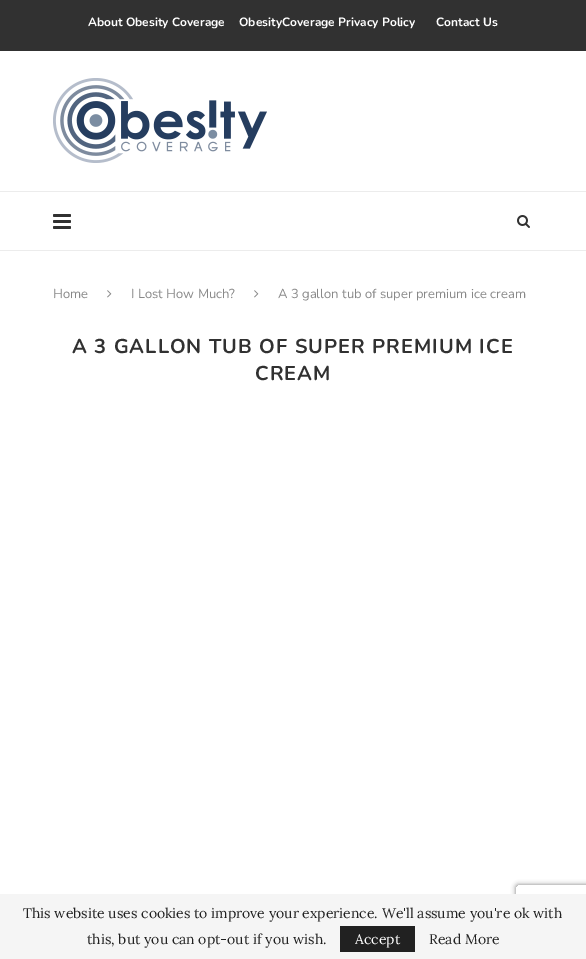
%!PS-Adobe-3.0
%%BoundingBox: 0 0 586 959
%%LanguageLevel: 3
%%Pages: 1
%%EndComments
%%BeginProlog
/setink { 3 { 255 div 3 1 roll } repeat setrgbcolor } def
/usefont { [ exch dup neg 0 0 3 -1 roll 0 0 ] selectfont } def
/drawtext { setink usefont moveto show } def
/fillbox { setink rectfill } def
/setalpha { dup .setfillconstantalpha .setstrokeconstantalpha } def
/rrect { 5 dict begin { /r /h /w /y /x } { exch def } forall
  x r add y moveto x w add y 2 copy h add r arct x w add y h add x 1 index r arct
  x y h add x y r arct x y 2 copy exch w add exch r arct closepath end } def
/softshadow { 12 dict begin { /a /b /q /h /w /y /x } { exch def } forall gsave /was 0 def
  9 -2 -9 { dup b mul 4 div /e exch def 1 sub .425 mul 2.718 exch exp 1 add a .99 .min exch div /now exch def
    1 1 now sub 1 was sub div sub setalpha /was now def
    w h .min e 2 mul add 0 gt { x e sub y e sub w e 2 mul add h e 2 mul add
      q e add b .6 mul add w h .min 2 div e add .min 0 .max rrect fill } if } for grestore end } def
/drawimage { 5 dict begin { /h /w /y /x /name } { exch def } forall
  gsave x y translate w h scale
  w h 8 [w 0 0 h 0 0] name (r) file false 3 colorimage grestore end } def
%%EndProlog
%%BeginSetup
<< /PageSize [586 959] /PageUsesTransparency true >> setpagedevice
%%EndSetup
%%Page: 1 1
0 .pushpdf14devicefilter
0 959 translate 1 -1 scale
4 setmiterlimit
0 0 586 959 255 255 255 fillbox
0 0 586 51 49 49 49 fillbox
(About Obesity Coverage) 88 26 /Nunito-Bold 12 255 255 255 drawtext
(ObesityCoverage Privacy Policy) 239 26 /Nunito-Bold 12 255 255 255 drawtext
(Contact Us) 436 26 /Nunito-Bold 12 255 255 255 drawtext
(assets/img1.rgb) 53 78 214 85 drawimage
0 191 586 1 236 236 236 fillbox
0 250 586 1 236 236 236 fillbox
(assets/img2.rgb) 53 214 18 15 drawimage
(assets/img3.rgb) 517 215 13 13 drawimage
(Home) 53 298 /Nunito-Regular 13 136 136 136 drawtext
(assets/img4.rgb) 107 290 5 8 drawimage
(I Lost How Much?) 131 298 /Nunito-Regular 13 136 136 136 drawtext
(assets/img4.rgb) 254 290 5 8 drawimage
(A 3 gallon tub of super premium ice cream) 278 298 /Nunito-Regular 13 136 136 136 drawtext
/Nunito-Bold 20 usefont
49 49 49 setink
72 353 moveto 1 0 (A 3 GALLON TUB OF SUPER PREMIUM ICE) ashow
255 380 moveto 1 0 (CREAM) ashow
gsave
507 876 moveto 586 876 lineto 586 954 lineto 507 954 lineto closepath 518 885 moveto 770 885 lineto 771 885 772 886 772 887 curveto 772 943 lineto 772 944 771 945 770 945 curveto 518 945 lineto 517 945 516 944 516 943 curveto 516 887 lineto 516 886 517 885 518 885 curveto closepath eoclip newpath
128 128 128 setink
516 885 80 60 2 2.5 1 softshadow
grestore
0 894 586 65 245 245 245 fillbox
(This website uses cookies to improve your experience. We'll assume you're ok with) 23 918 /Lora-Regular 14 33 33 33 drawtext
(this, but you can opt-out if you wish.) 87 944 /Lora-Regular 14 33 33 33 drawtext
340 926 75 26 33 33 33 fillbox
(Accept) 355 944 /Lora-Regular 14 255 255 255 drawtext
(Read More) 429 944 /Lora-Regular 14 33 33 33 drawtext
.poppdf14devicefilter showpage
%%EOF
